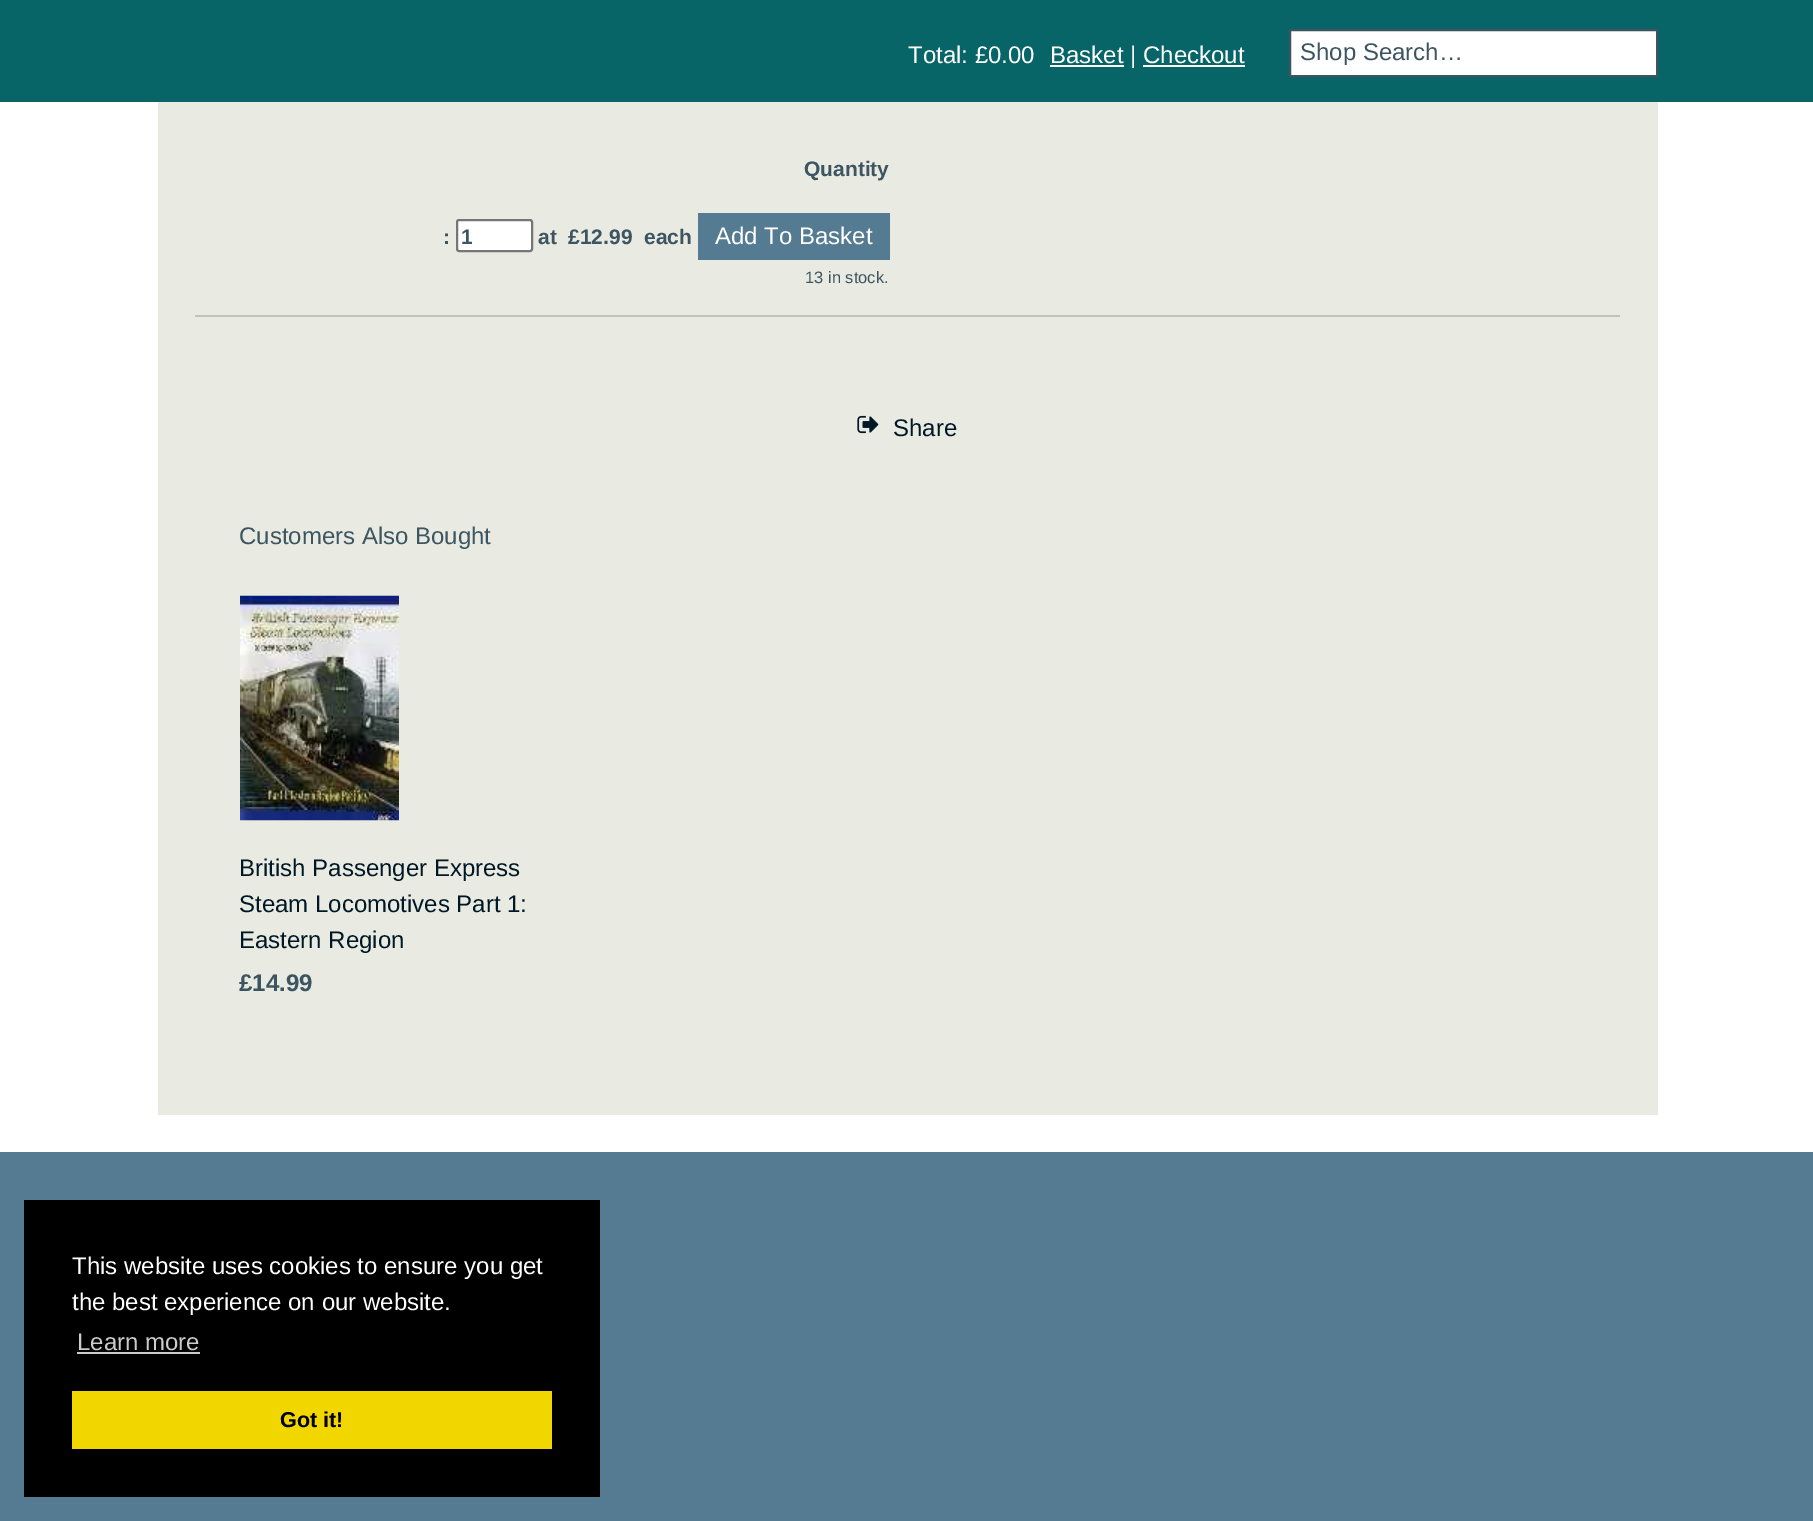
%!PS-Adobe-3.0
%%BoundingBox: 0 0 1813 1521
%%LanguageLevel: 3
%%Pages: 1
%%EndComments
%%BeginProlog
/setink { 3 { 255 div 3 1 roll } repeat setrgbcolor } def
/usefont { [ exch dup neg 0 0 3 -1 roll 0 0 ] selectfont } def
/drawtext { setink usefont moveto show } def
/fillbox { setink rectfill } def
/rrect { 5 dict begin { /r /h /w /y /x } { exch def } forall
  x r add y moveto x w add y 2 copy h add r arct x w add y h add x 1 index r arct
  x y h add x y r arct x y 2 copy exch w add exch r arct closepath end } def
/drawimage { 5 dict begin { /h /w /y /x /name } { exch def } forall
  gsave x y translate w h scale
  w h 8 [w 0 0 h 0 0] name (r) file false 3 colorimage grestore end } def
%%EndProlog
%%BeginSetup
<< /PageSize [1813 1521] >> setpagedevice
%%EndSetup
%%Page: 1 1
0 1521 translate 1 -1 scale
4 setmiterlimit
0 0 1813 1521 255 255 255 fillbox
0 0 1813 102 7 101 103 fillbox
(Total: £0.00) 908 63 /LiberationSans-Regular 24 255 255 255 drawtext
1050 65 74 2 255 255 255 fillbox
(Basket | Checkout) 1050 63 /LiberationSans-Regular 24 255 255 255 drawtext
1143 65 102 2 255 255 255 fillbox
1290 30 moveto 1657 30 lineto 1657 76 lineto 1290 76 lineto closepath gsave fill grestore
60 85 97 setink
2 setlinewidth
stroke
(Shop Search…) 1300 60 /LiberationSans-Regular 24 60 85 97 drawtext
158 102 1500 1013 233 234 225 fillbox
(Quantity) 804 176 /LiberationSans-Bold 21 60 85 97 drawtext
(:) 443 244 /LiberationSans-Bold 21 60 85 97 drawtext
255 255 255 setink
457 220 75 31 2 rrect gsave fill grestore
118 118 118 setink
stroke
(1) 461 244 /LiberationSans-Bold 21 60 85 97 drawtext
(at) 538 244 /LiberationSans-Bold 21 60 85 97 drawtext
(£12.99) 568 244 /LiberationSans-Bold 21 60 85 97 drawtext
(each) 644 244 /LiberationSans-Bold 21 60 85 97 drawtext
698 213 192 47 84 123 145 fillbox
(Add To Basket) 715 244 /LiberationSans-Regular 24 255 255 255 drawtext
(13 in stock.) 805 283 /LiberationSans-Regular 16.5 60 85 97 drawtext
195 315 1425 2 193 194 185 fillbox
(assets/img1.rgb) 857 415 22 19 drawimage
(Share) 893 436 /LiberationSans-Regular 24 0 23 38 drawtext
(Customers Also Bought) 239 544 /LiberationSans-Regular 24 60 85 97 drawtext
(assets/img2.rgb) 240 595 159 226 drawimage
(British Passenger Express) 239 876 /LiberationSans-Regular 24 0 23 38 drawtext
(Steam Locomotives Part 1:) 239 912 /LiberationSans-Regular 24 0 23 38 drawtext
(Eastern Region) 239 948 /LiberationSans-Regular 24 0 23 38 drawtext
(£14.99) 239 991 /LiberationSans-Bold 24 60 85 97 drawtext
0 1152 1813 369 84 123 145 fillbox
24 1200 576 297 0 0 0 fillbox
(This website uses cookies to ensure you get) 72 1274 /LiberationSans-Regular 24 255 255 255 drawtext
(the best experience on our website.) 72 1310 /LiberationSans-Regular 24 255 255 255 drawtext
(Learn more) 77 1350 /LiberationSans-Regular 24 204 204 204 drawtext
77 1352 123 2 204 204 204 fillbox
72 1391 480 58 241 214 0 fillbox
(Got it!) 280 1427 /LiberationSans-Bold 21.5 0 0 0 drawtext
showpage
%%EOF
